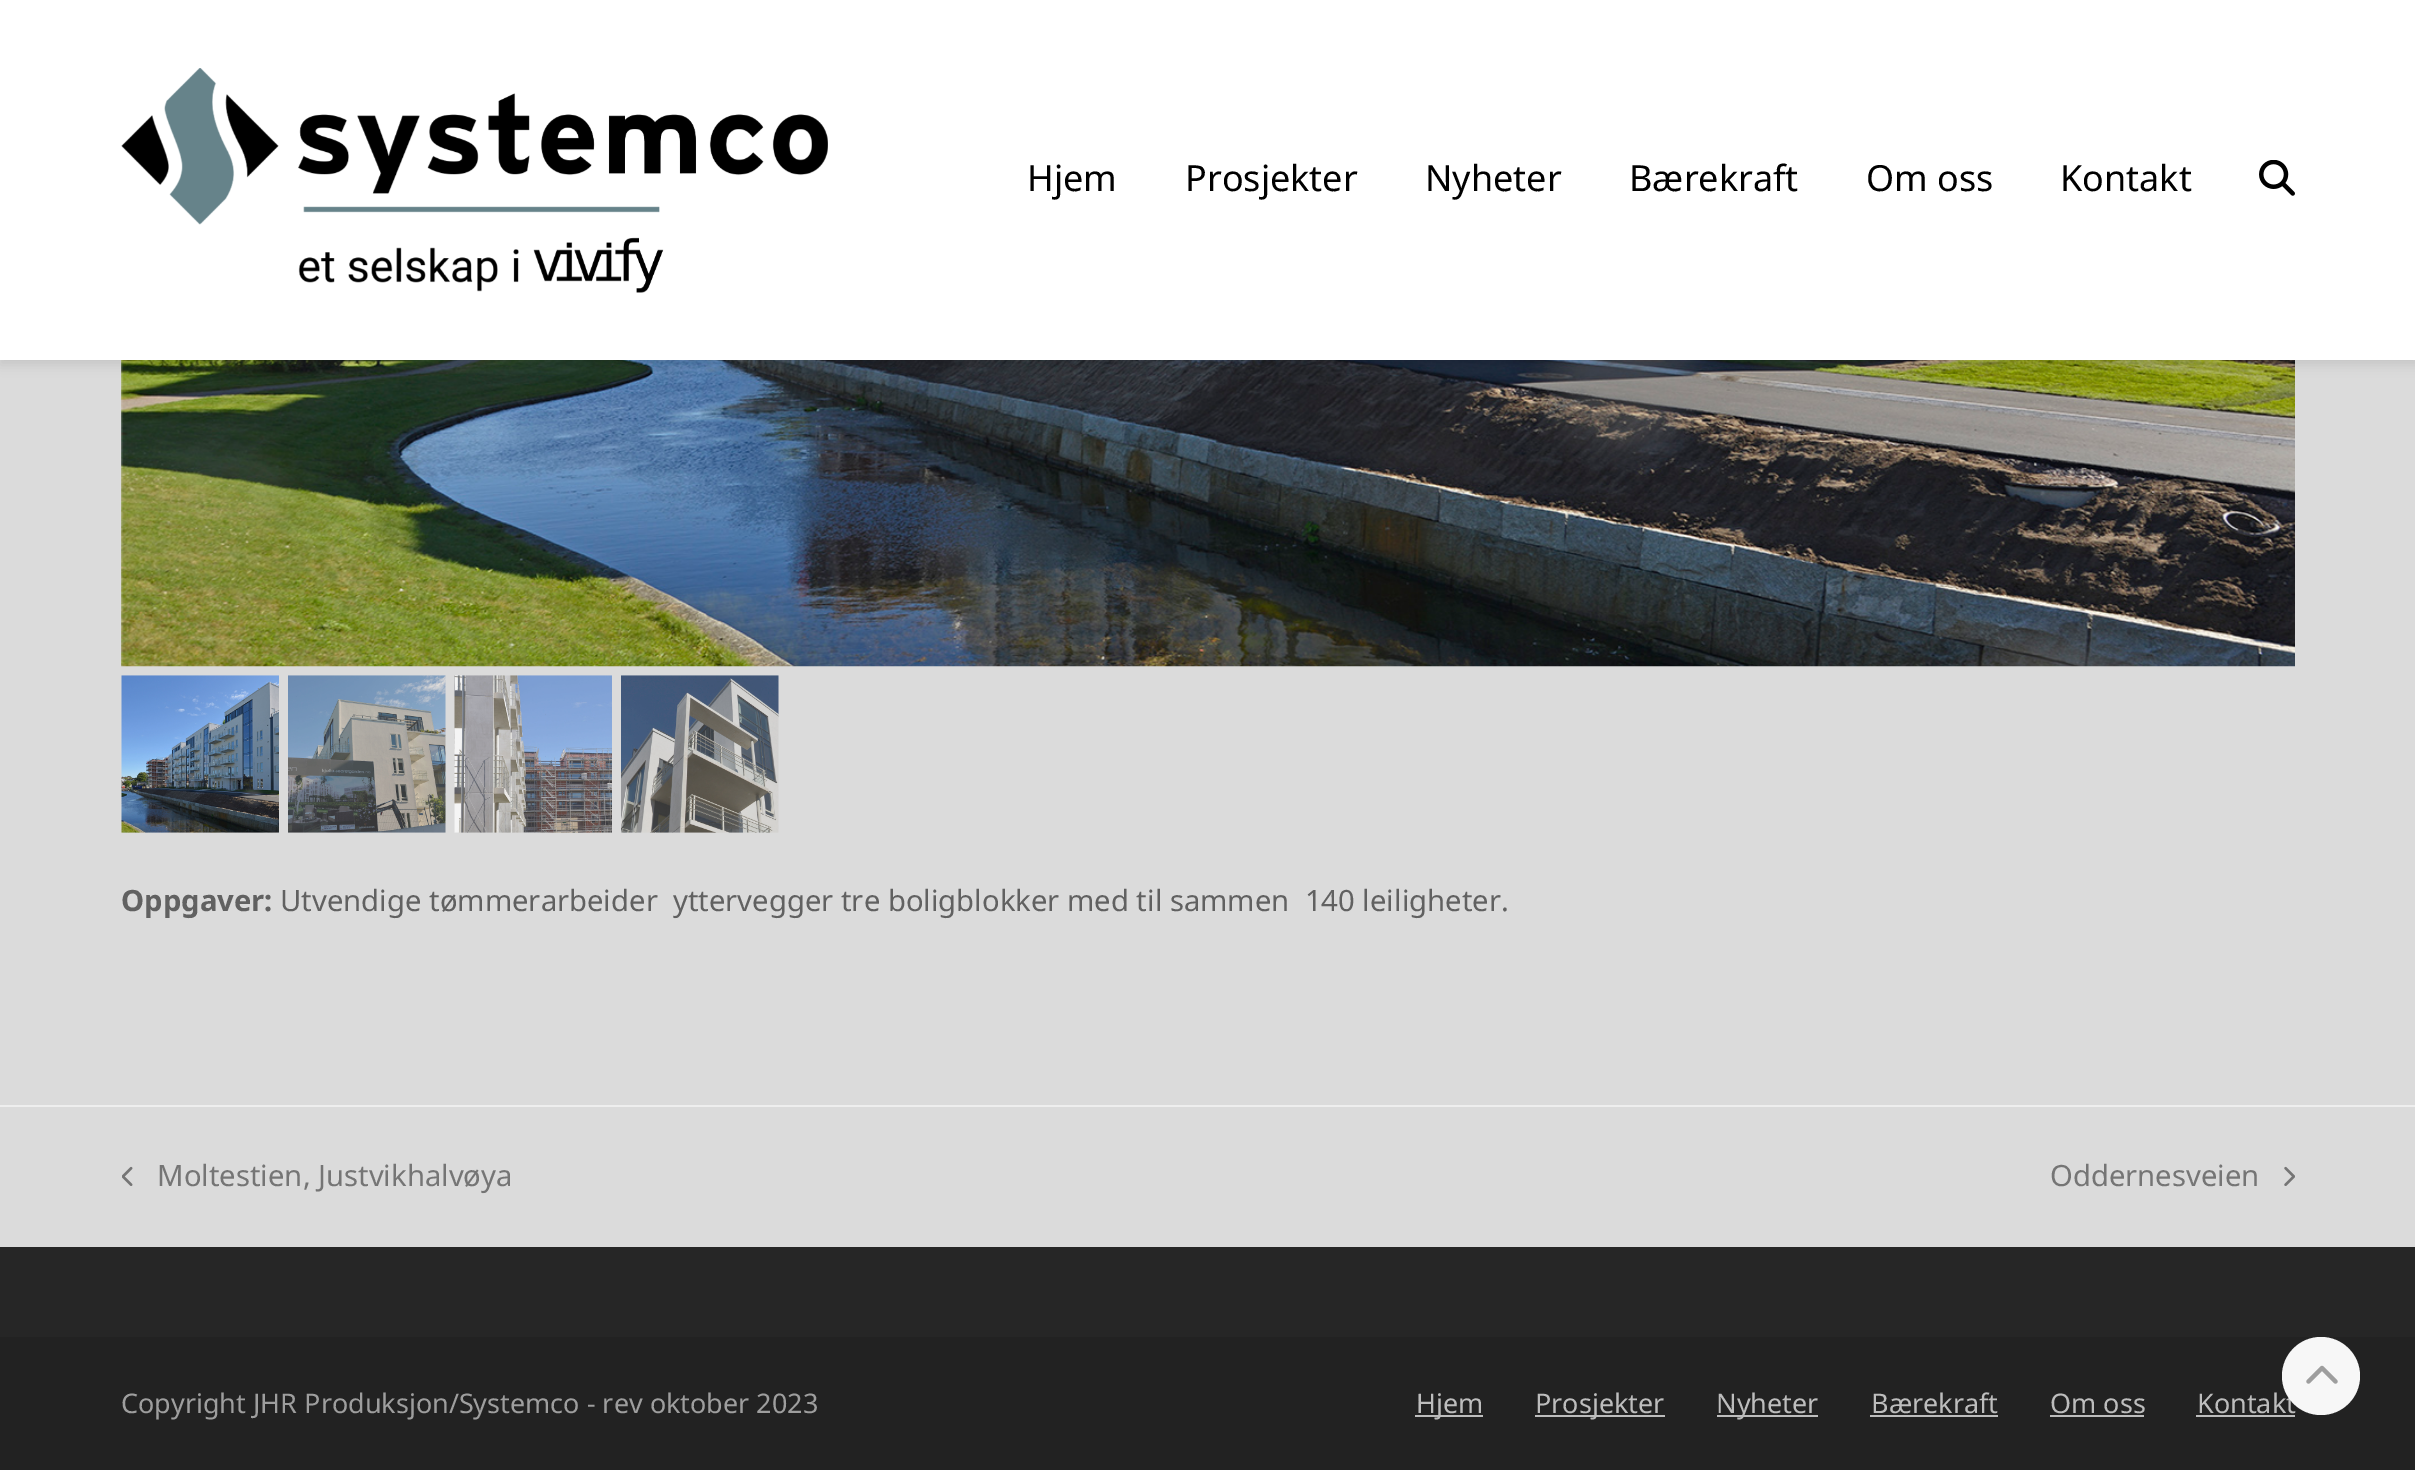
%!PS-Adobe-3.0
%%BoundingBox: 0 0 2415 1470
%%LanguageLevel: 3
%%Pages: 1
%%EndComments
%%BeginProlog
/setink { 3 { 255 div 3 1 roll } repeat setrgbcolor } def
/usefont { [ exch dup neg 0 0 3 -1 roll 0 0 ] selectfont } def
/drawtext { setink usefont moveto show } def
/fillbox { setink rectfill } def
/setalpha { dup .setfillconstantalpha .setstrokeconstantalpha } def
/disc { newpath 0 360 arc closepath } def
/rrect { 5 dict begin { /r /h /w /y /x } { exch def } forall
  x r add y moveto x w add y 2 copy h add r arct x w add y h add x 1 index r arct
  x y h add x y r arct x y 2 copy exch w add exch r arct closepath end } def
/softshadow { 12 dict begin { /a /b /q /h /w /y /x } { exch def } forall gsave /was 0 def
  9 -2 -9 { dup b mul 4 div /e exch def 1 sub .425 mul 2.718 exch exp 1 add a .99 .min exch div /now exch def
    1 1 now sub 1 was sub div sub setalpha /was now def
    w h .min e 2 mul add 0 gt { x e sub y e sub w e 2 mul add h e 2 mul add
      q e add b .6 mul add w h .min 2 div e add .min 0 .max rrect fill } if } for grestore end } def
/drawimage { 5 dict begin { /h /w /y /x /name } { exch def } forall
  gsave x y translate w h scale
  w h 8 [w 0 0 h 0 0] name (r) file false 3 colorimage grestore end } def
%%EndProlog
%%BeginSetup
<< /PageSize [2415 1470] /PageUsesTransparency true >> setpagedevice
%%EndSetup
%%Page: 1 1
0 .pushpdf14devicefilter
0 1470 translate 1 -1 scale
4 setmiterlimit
0 0 2415 1470 219 219 219 fillbox
(assets/img3.rgb) 121 360 2174 307 drawimage
0 0 0 setink
0 5 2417 360 0 5.5 0.1 softshadow
0 0 2415 360 255 255 255 fillbox
(assets/img1.rgb) 121 68 707 225 drawimage
(Hjem) 1027 191 /NotoSans-Regular 36 0 0 0 drawtext
(Prosjekter) 1185 191 /NotoSans-Regular 36 0 0 0 drawtext
(Nyheter) 1425 191 /NotoSans-Regular 36 0 0 0 drawtext
(Bærekraft) 1629 191 /NotoSans-Regular 36 0 0 0 drawtext
(Om oss) 1866 191 /NotoSans-Regular 36 0 0 0 drawtext
(Kontakt) 2060 191 /NotoSans-Regular 36 0 0 0 drawtext
(assets/img2.rgb) 2259 160 36 36 drawimage
(assets/img4.rgb) 121 675 158 158 drawimage
(assets/img5.rgb) 288 675 158 158 drawimage
(assets/img6.rgb) 454 675 158 158 drawimage
(assets/img7.rgb) 621 675 158 158 drawimage
(Oppgaver:) 121 911 /NotoSans-Bold 29.25 97 97 97 drawtext
(Utvendige tømmerarbeider  yttervegger tre boligblokker med til sammen  140 leiligheter.) 280 911 /NotoSans-Regular 29.25 97 97 97 drawtext
0 1105 2415 2 238 238 238 fillbox
(assets/img8.rgb) 122 1166 11 20 drawimage
(Moltestien, Justvikhalvøya) 157 1186 /NotoSans-Regular 29.25 117 117 117 drawtext
(Oddernesveien) 2050 1186 /NotoSans-Regular 29.25 117 117 117 drawtext
(assets/img9.rgb) 2284 1166 11 20 drawimage
0 1247 2415 90 38 38 38 fillbox
0 1337 2415 133 34 34 34 fillbox
(Copyright) 121 1413 /NotoSans-Regular 27 158 158 158 drawtext
(JHR Produksjon/Systemco - rev oktober 2023) 253 1413 /NotoSans-Regular 27 158 158 158 drawtext
1415 1415 68 2 189 189 189 fillbox
(Hjem) 1416 1413 /NotoSans-Regular 27 189 189 189 drawtext
1535 1415 130 2 189 189 189 fillbox
(Prosjekter) 1535 1413 /NotoSans-Regular 27 189 189 189 drawtext
1717 1415 101 2 189 189 189 fillbox
(Nyheter) 1716 1413 /NotoSans-Regular 27 189 189 189 drawtext
(Bærekraft) 1871 1413 /NotoSans-Regular 27 189 189 189 drawtext
1870 1415 128 2 189 189 189 fillbox
(Om oss) 2050 1413 /NotoSans-Regular 27 189 189 189 drawtext
2050 1415 94 2 189 189 189 fillbox
(Kontakt) 2197 1413 /NotoSans-Regular 27 189 189 189 drawtext
2196 1415 99 2 189 189 189 fillbox
247 247 247 setink
2321 1376 39 disc fill
(assets/img10.rgb) 2306 1365 32 19 drawimage
.poppdf14devicefilter showpage
%%EOF
